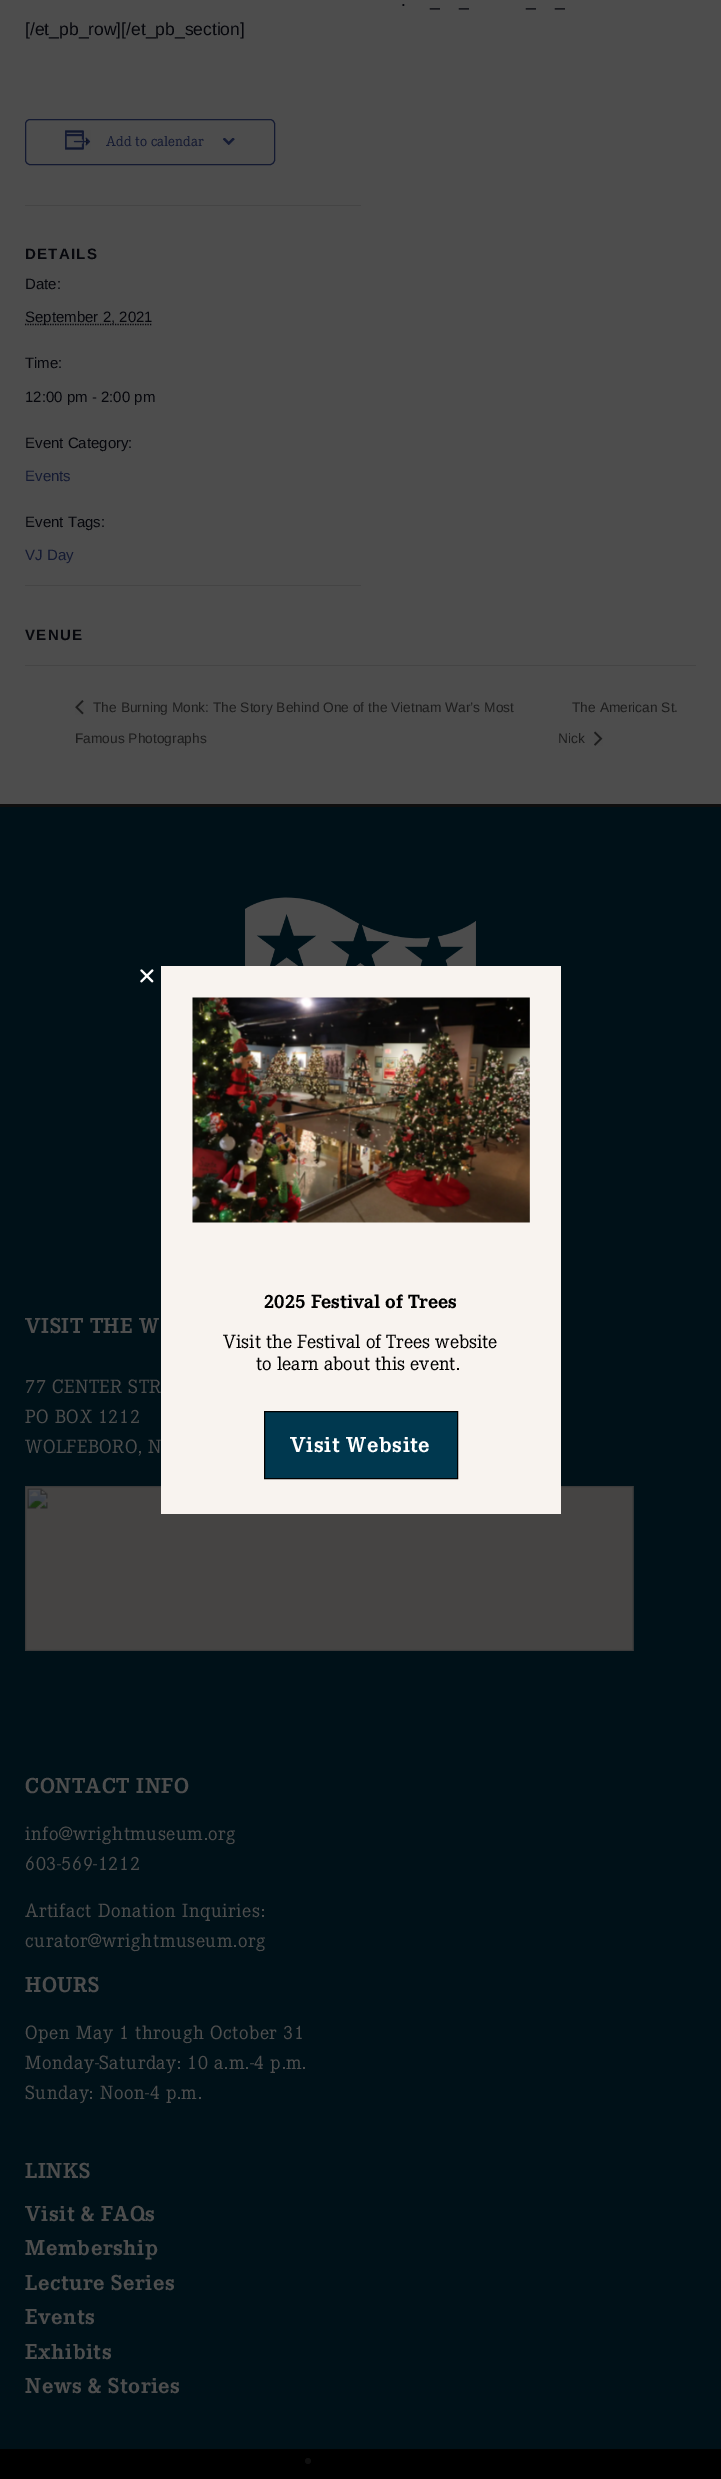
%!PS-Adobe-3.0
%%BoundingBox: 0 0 721 2479
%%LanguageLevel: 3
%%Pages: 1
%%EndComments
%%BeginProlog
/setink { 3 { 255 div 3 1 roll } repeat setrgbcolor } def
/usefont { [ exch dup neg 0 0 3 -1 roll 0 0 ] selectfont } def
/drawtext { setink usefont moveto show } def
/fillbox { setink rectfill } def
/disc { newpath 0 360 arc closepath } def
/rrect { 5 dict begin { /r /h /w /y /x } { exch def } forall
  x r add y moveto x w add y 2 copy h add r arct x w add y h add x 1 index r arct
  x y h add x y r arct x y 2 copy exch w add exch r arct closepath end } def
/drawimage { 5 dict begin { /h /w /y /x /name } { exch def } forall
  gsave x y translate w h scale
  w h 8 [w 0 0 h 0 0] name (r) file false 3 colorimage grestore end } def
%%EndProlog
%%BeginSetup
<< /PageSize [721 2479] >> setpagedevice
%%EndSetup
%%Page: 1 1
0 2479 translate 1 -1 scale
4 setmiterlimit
0 0 721 2479 77 77 77 fillbox
(.) 401 6 /LiberationSans-Regular 17.5 6 7 12 drawtext
(_) 430 6 /LiberationSans-Regular 17.5 6 7 12 drawtext
(_) 459 6 /LiberationSans-Regular 17.5 6 7 12 drawtext
(_) 526 6 /LiberationSans-Regular 17.5 6 7 12 drawtext
(_) 555 6 /LiberationSans-Regular 17.5 6 7 12 drawtext
([/et_pb_row][/et_pb_section]) 25 35 /LiberationSans-Regular 17.5 6 7 12 drawtext
20 26 50 setink
25.5 119.5 249 45 4.5 rrect stroke
(assets/img1.rgb) 65 130 26 20 drawimage
(Add to calendar) 106 146 /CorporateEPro-Regular 15 20 26 50 drawtext
(assets/img2.rgb) 223 138 12 7 drawimage
25 205 336 1 68 68 68 fillbox
/LiberationSans-Bold 15 usefont
6 7 12 setink
25 259 moveto 1.25 0 (DETAILS) ashow
(Date:) 25 289 /LiberationSans-Regular 15 6 7 12 drawtext
1.2 setlinewidth
[1.25 1.25] 0 setdash
25 324.5 moveto 152.5 324.5 lineto stroke
(September 2, 2021) 25 322 /LiberationSans-Regular 15 6 7 12 drawtext
(Time:) 25 368 /LiberationSans-Regular 15 6 7 12 drawtext
(12:00 pm - 2:00 pm) 25 402 /LiberationSans-Regular 15 6 7 12 drawtext
(Event Category:) 25 448 /LiberationSans-Regular 15 6 7 12 drawtext
(Events) 25 481 /LiberationSans-Regular 15 20 26 50 drawtext
(Event Tags:) 25 527 /LiberationSans-Regular 15 6 7 12 drawtext
(VJ Day) 25 560 /LiberationSans-Regular 15 20 26 50 drawtext
25 585 336 1 68 68 68 fillbox
/LiberationSans-Bold 15 usefont
6 7 12 setink
25 640 moveto 1.25 0 (VENUE) ashow
25 665 671 1 68 68 68 fillbox
(assets/img3.rgb) 75 700 9 15 drawimage
(The Burning Monk: The Story Behind One of the Vietnam War’s Most) 93 712 /LiberationSans-Regular 13.75 28 28 28 drawtext
(Famous Photographs) 75 743 /LiberationSans-Regular 13.75 28 28 28 drawtext
(The American St.) 572 712 /LiberationSans-Regular 13.75 28 28 28 drawtext
(Nick) 558 743 /LiberationSans-Regular 13.75 28 28 28 drawtext
(assets/img4.rgb) 594 731 9 15 drawimage
0 807 721 1642 0 17 24 fillbox
0 804 721 3 15 15 15 fillbox
(assets/img5.rgb) 245 897 231 69 drawimage
/CorporateEPro-Bold 22.5 usefont
77 77 77 setink
25 1333 moveto 0.6 0 (VISIT THE W) ashow
/CorporateEPro-Regular 20 usefont
25 1393 moveto 0.6 0 (77 CENTER STR) ashow
25 1423 moveto 0.6 0 (PO BOX 1212) ashow
25 1453 moveto 0.6 0 (WOLFEBORO, N) ashow
(assets/img6.rgb) 25 1486 609 165 drawimage
/CorporateEPro-Bold 22.5 usefont
25 1793 moveto 0.6 0 (CONTACT INFO) ashow
/CorporateEPro-Regular 20 usefont
25 1840 moveto 0.6 0 (info@wrightmuseum.org) ashow
25 1870 moveto 0.6 0 (603-569-1212) ashow
25 1917 moveto 0.6 0 (Artifact Donation Inquiries:) ashow
25 1947 moveto 0.6 0 (curator@wrightmuseum.org) ashow
/CorporateEPro-Bold 22.5 usefont
25 1992 moveto 0.6 0 (HOURS) ashow
/CorporateEPro-Regular 20 usefont
25 2039 moveto 0.6 0 (Open May 1 through October 31) ashow
25 2069 moveto 0.6 0 (Monday-Saturday: 10 a.m.-4 p.m.) ashow
25 2099 moveto 0.6 0 (Sunday: Noon-4 p.m.) ashow
/CorporateEPro-Bold 22.5 usefont
25 2178 moveto 0.6 0 (LINKS) ashow
25 2221 moveto 0.6 0 (Visit & FAQs) ashow
25 2255 moveto 0.6 0 (Membership) ashow
25 2290 moveto 0.6 0 (Lecture Series) ashow
25 2324 moveto 0.6 0 (Events) ashow
25 2359 moveto 0.6 0 (Exhibits) ashow
25 2393 moveto 0.6 0 (News & Stories) ashow
0 2449 721 30 0 0 0 fillbox
15 15 15 setink
308 2461 3 disc fill
161 966 400 548 248 243 239 fillbox
(assets/img7.rgb) 140 969 14 14 drawimage
(assets/img8.rgb) 192 997 338 226 drawimage
(2025 Festival of Trees) 264 1308 /CorporateEPro-Bold 20 0 0 0 drawtext
(Visit the Festival of Trees website) 223 1348 /CorporateEPro-Regular 20 0 0 0 drawtext
(to learn about this event.) 256 1370 /CorporateEPro-Regular 20 0 0 0 drawtext
0 56 79 setink
264.5 1411.5 moveto 457.5 1411.5 lineto 457.5 1478.5 lineto 264.5 1478.5 lineto closepath gsave fill grestore
0 0 0 setink
1 setlinewidth
[] 0 setdash
stroke
/CorporateEPro-Bold 22.5 usefont
255 255 255 setink
290 1452 moveto 0.6 0 (Visit Website) ashow
showpage
%%EOF
